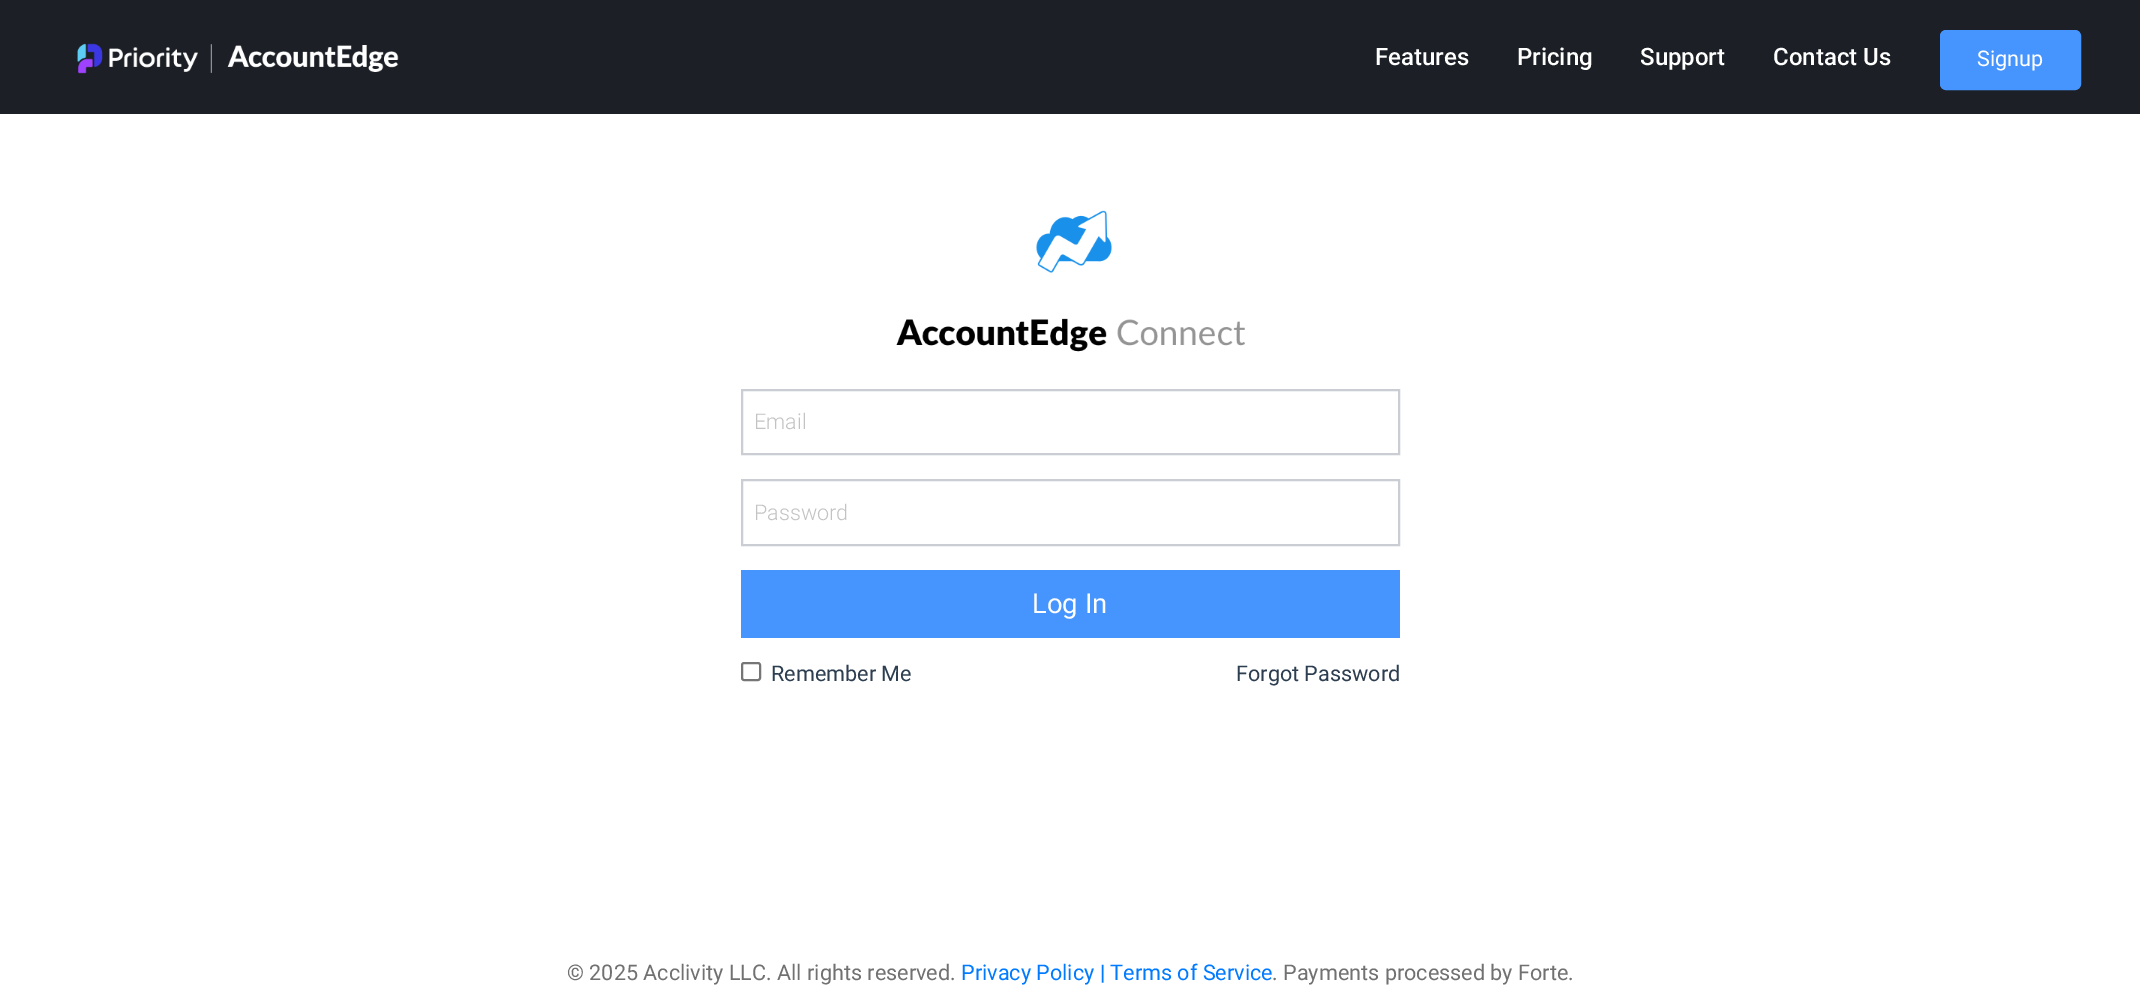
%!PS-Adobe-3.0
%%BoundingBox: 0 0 2140 1007
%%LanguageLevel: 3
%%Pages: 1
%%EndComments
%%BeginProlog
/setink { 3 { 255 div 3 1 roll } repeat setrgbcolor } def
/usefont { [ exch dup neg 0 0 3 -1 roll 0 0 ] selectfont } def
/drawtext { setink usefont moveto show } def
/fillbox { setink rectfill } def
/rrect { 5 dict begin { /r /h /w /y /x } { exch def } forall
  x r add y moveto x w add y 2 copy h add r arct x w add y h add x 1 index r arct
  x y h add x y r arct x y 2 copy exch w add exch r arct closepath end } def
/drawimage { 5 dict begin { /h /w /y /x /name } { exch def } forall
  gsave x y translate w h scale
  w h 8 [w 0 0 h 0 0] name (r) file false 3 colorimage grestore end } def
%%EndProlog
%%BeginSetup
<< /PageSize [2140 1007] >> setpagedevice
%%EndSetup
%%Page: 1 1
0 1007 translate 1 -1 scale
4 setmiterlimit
0 0 2140 1007 255 255 255 fillbox
0 0 2140 114 28 32 38 fillbox
(assets/img1.rgb) 77 43 322 31 drawimage
(Features) 1375 65 /Roboto-Medium 24 255 255 255 drawtext
(Pricing) 1517 65 /Roboto-Medium 24 255 255 255 drawtext
(Support) 1640 65 /Roboto-Medium 24 255 255 255 drawtext
(Contact Us) 1773 65 /Roboto-Medium 24 255 255 255 drawtext
70 149 255 setink
1941 31 139 58 5 rrect gsave fill grestore
2 setlinewidth
stroke
(Signup) 1977 66 /Roboto-Regular 21.6 255 255 255 drawtext
(assets/img2.rgb) 896 210 349 142 drawimage
202 205 212 setink
742 390 657 64 rectstroke
(Email) 754 429 /Roboto-Light 21.6 195 195 195 drawtext
202 205 212 setink
742 480 657 65 rectstroke
(Password) 754 520 /Roboto-Light 21.6 195 195 195 drawtext
741 570 659 68 70 149 255 fillbox
(Log In) 1032 613 /Roboto-Regular 27.5 255 255 255 drawtext
118 118 118 setink
742 663 18 17 2 rrect stroke
(Remember Me) 771 681 /Roboto-Regular 21.6 44 62 80 drawtext
(Forgot Password) 1236 681 /Roboto-Regular 21.6 44 62 80 drawtext
(© 2025 Acclivity LLC. All rights reserved.) 567 980 /Roboto-Regular 21.6 113 113 113 drawtext
(Privacy Policy | Terms of Service) 961 980 /Roboto-Regular 21.6 0 123 255 drawtext
(. Payments processed by Forte.) 1272 980 /Roboto-Regular 21.6 113 113 113 drawtext
showpage
%%EOF
